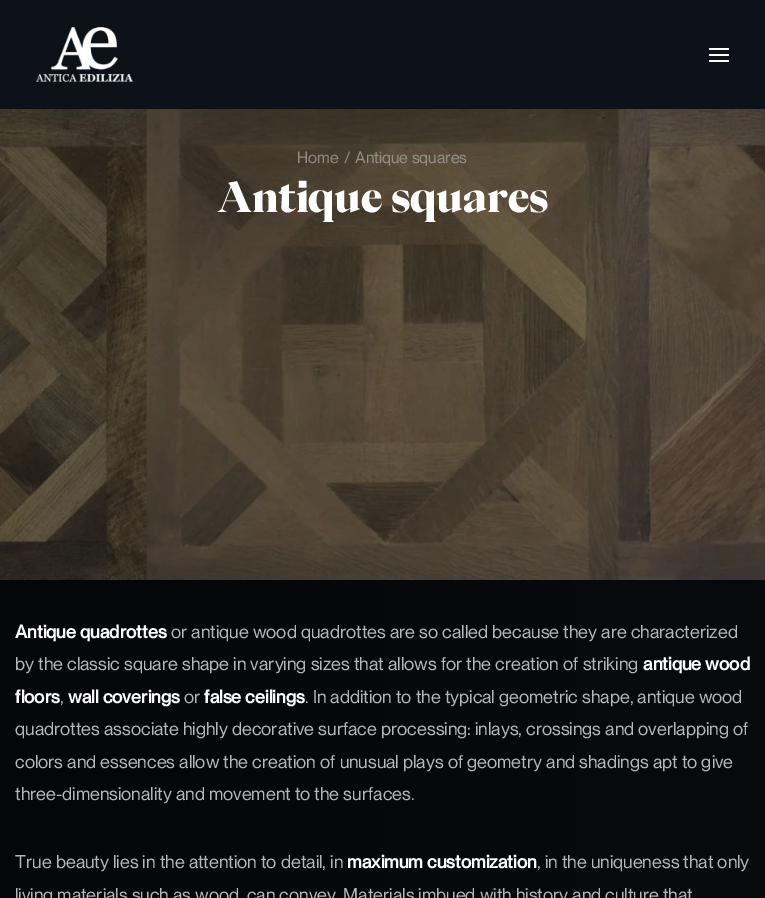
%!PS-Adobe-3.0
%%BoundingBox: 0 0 765 898
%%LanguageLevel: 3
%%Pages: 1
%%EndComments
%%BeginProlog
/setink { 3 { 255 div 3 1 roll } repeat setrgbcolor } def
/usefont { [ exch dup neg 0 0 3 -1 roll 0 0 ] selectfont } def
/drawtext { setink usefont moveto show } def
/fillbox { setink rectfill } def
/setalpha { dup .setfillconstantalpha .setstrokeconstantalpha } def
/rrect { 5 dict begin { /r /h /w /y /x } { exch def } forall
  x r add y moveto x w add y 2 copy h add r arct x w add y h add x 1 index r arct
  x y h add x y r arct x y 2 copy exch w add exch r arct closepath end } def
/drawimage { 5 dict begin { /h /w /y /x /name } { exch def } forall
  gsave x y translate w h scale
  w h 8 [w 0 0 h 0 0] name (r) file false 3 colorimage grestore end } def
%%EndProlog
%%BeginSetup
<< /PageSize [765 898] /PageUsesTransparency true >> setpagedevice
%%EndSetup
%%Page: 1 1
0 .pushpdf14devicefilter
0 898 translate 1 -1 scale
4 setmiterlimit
0 0 765 898 255 255 255 fillbox
gsave 0 109 moveto 765 109 lineto 765 898 lineto 0 898 lineto closepath clip newpath
<< /ShadingType 2 /ColorSpace /DeviceRGB /Coords [0 449 765 449] /Extend [true true] /Function << /FunctionType 2 /Domain [0 1] /C0 [0.02 0.024 0.039] /C1 [0.031 0.039 0.055] /N 1 >> >> shfill grestore
0 0 765 109 13 18 25 fillbox
(assets/img1.rgb) 36 27 97 55 drawimage
255 255 255 setink
709 54 20 2 1 rrect fill
709 48 20 2 1 rrect fill
709 60 20 2 1 rrect fill
(assets/img2.rgb) 0 109 765 471 drawimage
0.45 setalpha
gsave 0 109 moveto 765 109 lineto 765 580 lineto 0 580 lineto closepath clip newpath
<< /ShadingType 2 /ColorSpace /DeviceRGB /Coords [0 344 765 344] /Extend [true true] /Function << /FunctionType 2 /Domain [0 1] /C0 [0.02 0.024 0.039] /C1 [0.031 0.039 0.055] /N 1 >> >> shfill grestore
1 setalpha
(Home) 297 163 /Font-Regular 16 143 139 134 drawtext
(/) 344 163 /Font-Regular 16 143 139 134 drawtext
(Antique squares) 355 163 /Font-Regular 16 149 145 138 drawtext
(Antique squares) 217 212 /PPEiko-Black 40.75 255 255 255 drawtext
(Antique quadrottes) 15 638 /Font-Bold 18 255 255 255 drawtext
(or antique wood quadrottes are so called because they are characterized) 171 638 /Font-Regular 18 182 182 182 drawtext
(by the classic square shape in varying sizes that allows for the creation of striking) 15 670 /Font-Regular 18 182 182 182 drawtext
(antique wood) 643 670 /Font-Bold 18 255 255 255 drawtext
(floors) 15 703 /Font-Bold 18 255 255 255 drawtext
(,) 60 703 /Font-Regular 18 182 182 182 drawtext
(wall coverings) 68 703 /Font-Bold 18 255 255 255 drawtext
(or) 184 703 /Font-Regular 18 182 182 182 drawtext
(false ceilings) 204 703 /Font-Bold 18 255 255 255 drawtext
(. In addition to the typical geometric shape, antique wood) 305 703 /Font-Regular 18 182 182 182 drawtext
(quadrottes associate highly decorative surface processing: inlays, crossings and overlapping of) 15 735 /Font-Regular 18 182 182 182 drawtext
(colors and essences allow the creation of unusual plays of geometry and shadings apt to give) 15 768 /Font-Regular 18 182 182 182 drawtext
(three-dimensionality and movement to the surfaces.) 15 800 /Font-Regular 18 182 182 182 drawtext
(True beauty lies in the attention to detail, in) 15 868 /Font-Regular 18 182 182 182 drawtext
(maximum customization) 347 868 /Font-Bold 18 255 255 255 drawtext
(, in the uniqueness that only) 537 868 /Font-Regular 18 182 182 182 drawtext
(living materials such as wood, can convey. Materials imbued with history and culture that) 15 901 /Font-Regular 18 182 182 182 drawtext
.poppdf14devicefilter showpage
%%EOF
